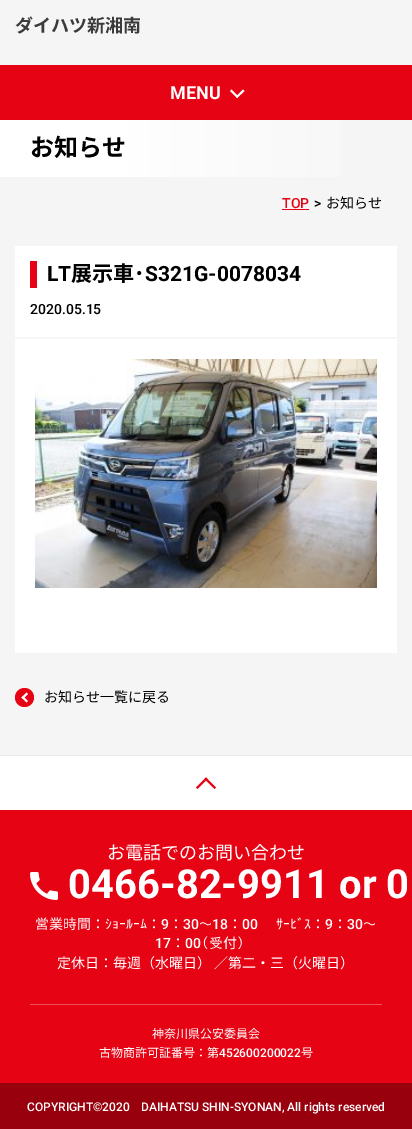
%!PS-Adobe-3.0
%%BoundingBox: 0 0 412 1129
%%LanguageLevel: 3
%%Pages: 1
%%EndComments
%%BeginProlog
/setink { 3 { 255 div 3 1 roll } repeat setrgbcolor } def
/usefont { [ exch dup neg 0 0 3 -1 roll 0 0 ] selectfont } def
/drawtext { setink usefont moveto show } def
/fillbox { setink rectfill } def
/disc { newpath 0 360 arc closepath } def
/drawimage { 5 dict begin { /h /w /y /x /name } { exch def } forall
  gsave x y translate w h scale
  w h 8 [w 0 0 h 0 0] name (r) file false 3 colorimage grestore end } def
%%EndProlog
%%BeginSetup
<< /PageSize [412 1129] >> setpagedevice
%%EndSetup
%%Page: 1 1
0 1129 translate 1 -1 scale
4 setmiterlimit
0 0 412 1129 245 245 245 fillbox
(ダイハツ新湘南) 15 32 /NotoSansJP-Bold 18 59 59 59 drawtext
0 65 412 55 230 3 19 fillbox
(MENU) 170 99 /Roboto-Bold 18 255 255 255 drawtext
244.5 91 moveto 237 98 lineto 236 96.5 lineto 243 89.5 lineto closepath fill
238.5 96.5 moveto 237 98 lineto 230 91 lineto 231.5 89.5 lineto closepath fill
gsave 0 120 moveto 340 120 lineto 340 177 lineto 0 177 lineto closepath clip newpath
<< /ShadingType 2 /ColorSpace /DeviceRGB /Coords [0 149 412 149] /Extend [true true] /Function << /FunctionType 3 /Domain [0 1] /Functions [<< /FunctionType 2 /Domain [0 1] /C0 [1 1 1] /C1 [1 1 1] /N 1 >> << /FunctionType 2 /Domain [0 1] /C0 [1 1 1] /C1 [0.961 0.961 0.961] /N 1 >>] /Bounds [0.3] /Encode [0 1 0 1] >> >> shfill grestore
(お知らせ) 30 156 /NotoSansJP-Bold 24 0 0 0 drawtext
(TOP) 282 208 /Roboto-Medium 14 230 3 19 drawtext
282 209 27 1 230 3 19 fillbox
(>) 314 208 /Roboto-Medium 14 0 0 0 drawtext
(お知らせ) 326 208 /NotoSansJP-Regular 14 0 0 0 drawtext
15 246 382 91 255 255 255 fillbox
30 261 7 27 230 3 19 fillbox
(LT) 47 281 /Roboto-Bold 21 0 0 0 drawtext
(展示車･) 71 281 /NotoSansJP-Bold 21 0 0 0 drawtext
(S321G-0078034) 145 281 /Roboto-Bold 21 0 0 0 drawtext
(2020.05.15) 30 314 /Roboto-Medium 14 0 0 0 drawtext
15 339 382 314 255 255 255 fillbox
(assets/img1.rgb) 35 359 342 229 drawimage
230 3 19 setink
24.5 697.5 9.5 disc fill
(お知らせ一覧に戻る) 44 702 /NotoSansJP-Regular 14 0 0 0 drawtext
255 255 255 setink
26.5 702.5 moveto 21.5 697.5 lineto 23 696 lineto 28 701 lineto closepath fill
23 699 moveto 21.5 697.5 lineto 26.5 692.5 lineto 28 694 lineto closepath fill
0 810 412 273 230 3 19 fillbox
0 755 412 1 233 233 233 fillbox
0 756 412 54 255 255 255 fillbox
230 3 19 setink
196 787.5 moveto 206 777.5 lineto 207.5 779 lineto 197.5 789 lineto closepath fill
204.5 779 moveto 206 777.5 lineto 216 787.5 lineto 214.5 789 lineto closepath fill
(お電話でのお問い合わせ) 107 859 /NotoSansJP-Regular 18 255 255 255 drawtext
(assets/img2.rgb) 30 872 28 28 drawimage
(0466-82-9911 or 0) 68 898 /Roboto-Bold 40 255 255 255 drawtext
(営) 35 929 /IPAPGothic-Regular 14 255 255 255 drawtext
(業) 49 929 /NotoSansJP-Regular 14 255 255 255 drawtext
(時間) 63 929 /IPAPGothic-Regular 14 255 255 255 drawtext
(：) 91 929 /NotoSansJP-Regular 14 255 255 255 drawtext
(ｼｮｰﾙｰﾑ) 105 929 /IPAPGothic-Regular 14 255 255 255 drawtext
(：) 147 929 /NotoSansJP-Regular 14 255 255 255 drawtext
(9) 161 929 /Roboto-Medium 14 255 255 255 drawtext
(：) 169 929 /NotoSansJP-Regular 14 255 255 255 drawtext
(30) 183 929 /Roboto-Medium 14 255 255 255 drawtext
(～) 199 929 /IPAPGothic-Regular 14 255 255 255 drawtext
(18) 212 929 /Roboto-Medium 14 255 255 255 drawtext
(：) 228 929 /NotoSansJP-Regular 14 255 255 255 drawtext
(00) 242 929 /Roboto-Medium 14 255 255 255 drawtext
(ｻｰﾋﾞｽ) 276 929 /IPAPGothic-Regular 14 255 255 255 drawtext
(：) 311 929 /NotoSansJP-Regular 14 255 255 255 drawtext
(9) 325 929 /Roboto-Medium 14 255 255 255 drawtext
(：) 333 929 /NotoSansJP-Regular 14 255 255 255 drawtext
(30) 347 929 /Roboto-Medium 14 255 255 255 drawtext
(～) 363 929 /IPAPGothic-Regular 14 255 255 255 drawtext
(17) 155 948 /Roboto-Medium 14 255 255 255 drawtext
(：) 171 948 /NotoSansJP-Regular 14 255 255 255 drawtext
(00) 185 948 /Roboto-Medium 14 255 255 255 drawtext
(（受) 201 948 /IPAPGothic-Regular 14 255 255 255 drawtext
(付) 223 948 /NotoSansJP-Regular 14 255 255 255 drawtext
(）) 237 948 /IPAPGothic-Regular 14 255 255 255 drawtext
(定休日：毎週（水曜日） ／第二・三（火曜日）) 57 968 /NotoSansJP-Regular 14 255 255 255 drawtext
30 1004 352 1 238 79 90 fillbox
(神奈川県公安委員会) 152 1038 /NotoSansJP-Regular 12 255 255 255 drawtext
(古物商許可証番号：第) 99 1057 /NotoSansJP-Regular 12 255 255 255 drawtext
(452600200022) 219 1057 /Roboto-Medium 12 255 255 255 drawtext
(号) 301 1057 /NotoSansJP-Regular 12 255 255 255 drawtext
0 1083 412 46 153 0 13 fillbox
(COPYRIGHT©2020) 27 1111 /Roboto-Medium 12 255 255 255 drawtext
(DAIHATSU SHIN-SYONAN, All rights reserved) 141 1111 /Roboto-Medium 12 255 255 255 drawtext
showpage
%%EOF
